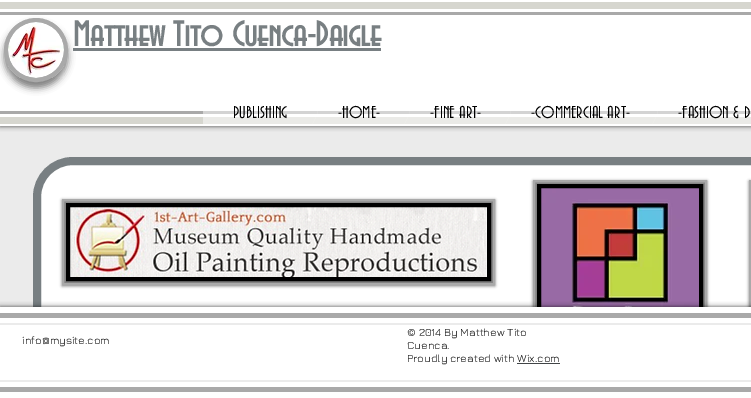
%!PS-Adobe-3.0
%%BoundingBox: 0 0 751 398
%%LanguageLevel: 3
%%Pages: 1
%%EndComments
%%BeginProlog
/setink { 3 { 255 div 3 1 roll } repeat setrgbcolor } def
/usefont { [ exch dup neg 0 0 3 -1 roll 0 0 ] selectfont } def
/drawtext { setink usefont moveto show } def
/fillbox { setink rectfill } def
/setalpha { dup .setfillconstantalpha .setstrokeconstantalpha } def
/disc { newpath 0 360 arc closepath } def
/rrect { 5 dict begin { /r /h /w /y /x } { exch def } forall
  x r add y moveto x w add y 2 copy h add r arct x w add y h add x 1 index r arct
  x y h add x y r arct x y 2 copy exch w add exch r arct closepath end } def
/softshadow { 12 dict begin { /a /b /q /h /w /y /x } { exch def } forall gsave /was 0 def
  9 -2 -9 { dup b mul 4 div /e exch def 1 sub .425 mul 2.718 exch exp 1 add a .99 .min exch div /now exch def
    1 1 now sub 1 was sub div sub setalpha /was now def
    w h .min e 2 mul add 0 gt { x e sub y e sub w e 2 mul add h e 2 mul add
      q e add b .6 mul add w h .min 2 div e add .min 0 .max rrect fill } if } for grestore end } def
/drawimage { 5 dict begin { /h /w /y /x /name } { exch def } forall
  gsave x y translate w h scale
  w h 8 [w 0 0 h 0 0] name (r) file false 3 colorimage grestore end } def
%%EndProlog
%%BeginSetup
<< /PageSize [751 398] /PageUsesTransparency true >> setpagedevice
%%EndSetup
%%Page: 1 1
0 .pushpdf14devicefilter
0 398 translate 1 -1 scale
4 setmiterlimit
0 0 751 398 235 235 235 fillbox
0 0 0 setink
0 0 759 126 0 2.5 0.7 softshadow
0 0 751 126 255 255 255 fillbox
0 2 751 7 214 214 207 fillbox
0 117 751 7 214 214 207 fillbox
658 117 82 7 234 234 231 fillbox
511 117 77 7 234 234 231 fillbox
410 117 31 7 234 234 231 fillbox
318 117 22 7 234 234 231 fillbox
203 117 45 7 234 234 231 fillbox
0 12 751 3 169 169 169 fillbox
0 111 751 3 169 169 169 fillbox
658 111 82 3 211 211 211 fillbox
511 111 77 3 211 211 211 fillbox
410 111 31 3 211 211 211 fillbox
318 111 22 3 211 211 211 fillbox
203 111 45 3 211 211 211 fillbox
0 0 0 setink
4 24 64 64 32 3.5 0.5 softshadow
169 169 169 setink
36 50 30 disc gsave fill grestore
4 setlinewidth
stroke
(assets/img1.rgb) 8 22 56 56 drawimage
(Matthew Tito Cuenca-Daigle) 73 46 /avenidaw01-Bold 37 120 127 130 drawtext
73 48 308 3 120 127 130 fillbox
gsave
248 100 70 26 rectclip
0.49 setalpha
255 255 255 setink
318 113 moveto 248 113 lineto 248 -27 lineto closepath fill
248 113 moveto 318 113 lineto 248 253 lineto closepath fill
grestore
(PUBLISHING) 233 118 /avenidaw01-Regular 18 0 0 0 drawtext
gsave
248 100 70 26 rectclip
0.49 setalpha
255 255 255 setink
248 -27 moveto 318 -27 lineto 318 113 lineto closepath 318 253 moveto 248 253 lineto 318 113 lineto closepath fill
grestore
gsave
340 100 70 26 rectclip
0.49 setalpha
255 255 255 setink
410 113 moveto 340 113 lineto 340 -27 lineto closepath fill
340 113 moveto 410 113 lineto 340 253 lineto closepath fill
grestore
(-HOME-) 338 118 /avenidaw01-Regular 18 0 0 0 drawtext
gsave
340 100 70 26 rectclip
0.49 setalpha
255 255 255 setink
340 -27 moveto 410 -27 lineto 410 113 lineto closepath 410 253 moveto 340 253 lineto 410 113 lineto closepath fill
grestore
gsave
441 100 70 26 rectclip
0.49 setalpha
255 255 255 setink
511 113 moveto 441 113 lineto 441 -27 lineto closepath fill
441 113 moveto 511 113 lineto 441 253 lineto closepath fill
grestore
(-FINE ART-) 430 118 /avenidaw01-Regular 18 0 0 0 drawtext
gsave
441 100 70 26 rectclip
0.49 setalpha
255 255 255 setink
441 -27 moveto 511 -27 lineto 511 113 lineto closepath 511 253 moveto 441 253 lineto 511 113 lineto closepath fill
grestore
gsave
588 100 70 26 rectclip
0.49 setalpha
255 255 255 setink
658 113 moveto 588 113 lineto 588 -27 lineto closepath fill
588 113 moveto 658 113 lineto 588 253 lineto closepath fill
grestore
(-COMMERCIAL ART-) 531 118 /avenidaw01-Regular 18 0 0 0 drawtext
gsave
588 100 70 26 rectclip
0.49 setalpha
255 255 255 setink
588 -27 moveto 658 -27 lineto 658 113 lineto closepath 658 253 moveto 588 253 lineto 658 113 lineto closepath fill
grestore
gsave
740 100 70 26 rectclip
0.49 setalpha
255 255 255 setink
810 113 moveto 740 113 lineto 740 -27 lineto closepath 740 113 moveto 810 113 lineto 740 253 lineto closepath fill
grestore
(-FASHION & D) 678 118 /avenidaw01-Regular 18 0 0 0 drawtext
255 255 255 setink
37 161 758 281 36 rrect gsave fill grestore
120 127 130 setink
8 setlinewidth
stroke
0 0 0 setink
62 200 433 86 0 1.5 0.5 softshadow
169 169 169 setink
2 setlinewidth
63 200 431 84 rectstroke
(assets/img2.rgb) 70 207 417 70 drawimage
0 0 0 setink
4 setlinewidth
68 205 421 74 rectstroke
533 181 174 186 0 1.5 0.5 softshadow
169 169 169 setink
2 setlinewidth
534 181 172 184 rectstroke
(assets/img3.rgb) 541 188 158 119 drawimage
0 0 0 setink
4 setlinewidth
539 186 162 174 rectstroke
749 181 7 186 0 1.5 0.5 softshadow
169 169 169 setink
2 setlinewidth
750 181 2 184 rectstroke
0 0 0 setink
0 307 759 91 0 2.5 0.7 softshadow
0 307 751 91 255 255 255 fillbox
0 313 751 5 169 169 169 fillbox
0 387 751 5 169 169 169 fillbox
0 323 751 2 235 235 235 fillbox
0 380 751 2 235 235 235 fillbox
(info@mysite.com) 22 344 /Jura-Regular 11 0 0 0 drawtext
(© 2014 By Matthew Tito) 407 336 /Jura-Regular 11 0 0 0 drawtext
(Cuenca.) 407 349 /Jura-Regular 11 0 0 0 drawtext
(Proudly created with Wix.com) 407 362 /Jura-Regular 11 0 0 0 drawtext
517 363 43 1 65 69 71 fillbox
.poppdf14devicefilter showpage
%%EOF
